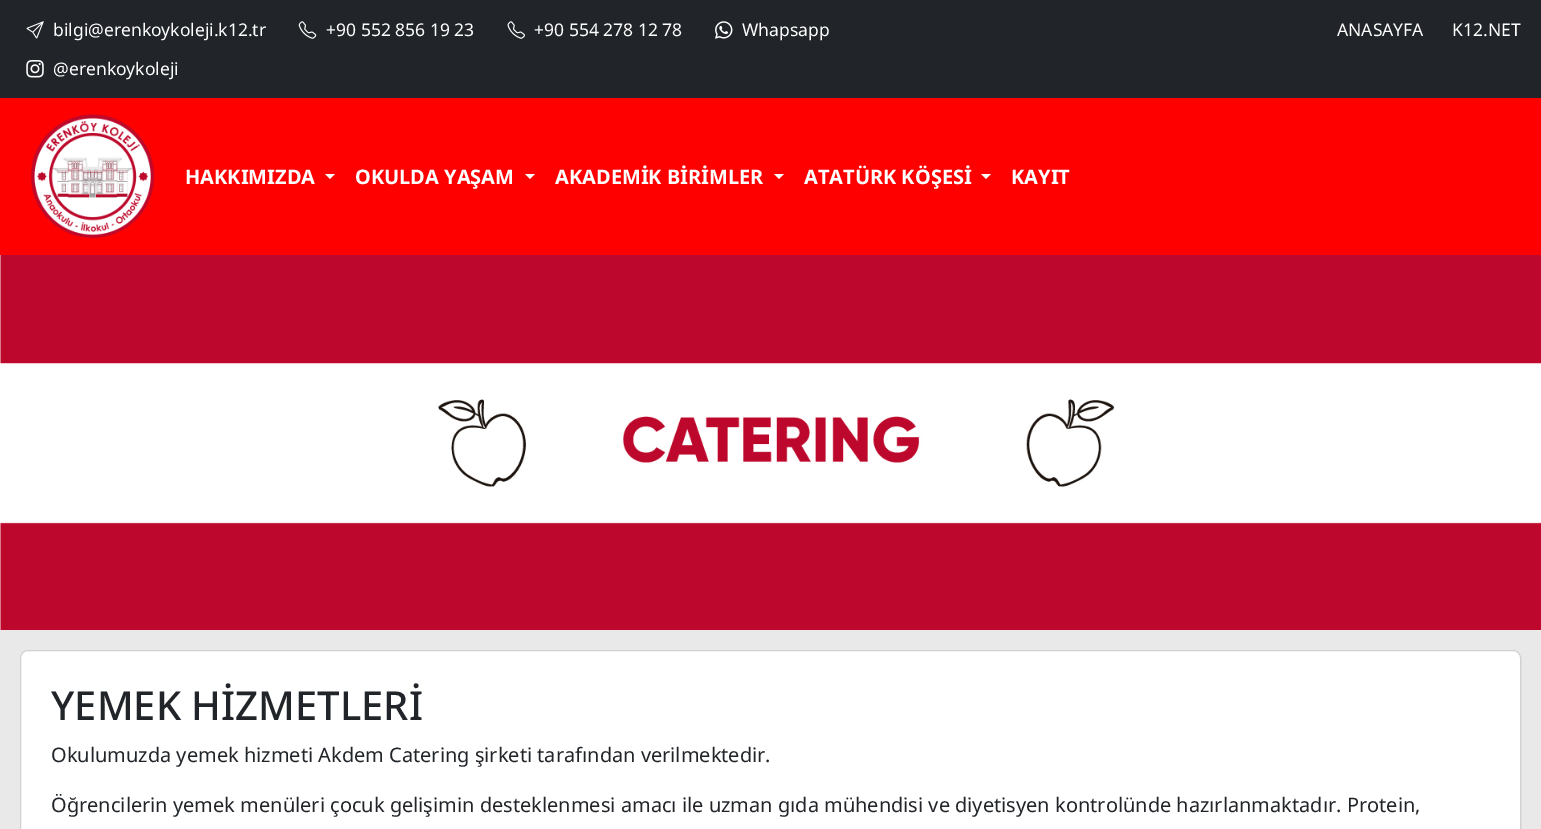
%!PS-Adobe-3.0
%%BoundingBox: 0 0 1541 829
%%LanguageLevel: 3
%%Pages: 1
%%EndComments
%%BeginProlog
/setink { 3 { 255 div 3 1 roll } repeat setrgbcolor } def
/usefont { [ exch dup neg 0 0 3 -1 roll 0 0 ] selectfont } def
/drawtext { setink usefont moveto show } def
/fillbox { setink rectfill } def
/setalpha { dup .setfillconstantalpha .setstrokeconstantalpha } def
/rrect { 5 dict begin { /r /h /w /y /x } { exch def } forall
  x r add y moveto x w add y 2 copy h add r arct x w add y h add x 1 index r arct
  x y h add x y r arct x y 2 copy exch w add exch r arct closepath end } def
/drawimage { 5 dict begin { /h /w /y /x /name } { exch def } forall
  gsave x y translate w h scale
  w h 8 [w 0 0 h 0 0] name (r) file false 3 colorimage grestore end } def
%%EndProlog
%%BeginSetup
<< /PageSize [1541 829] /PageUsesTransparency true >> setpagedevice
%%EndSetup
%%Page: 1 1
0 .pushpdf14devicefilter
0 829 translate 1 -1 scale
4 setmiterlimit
0 0 1541 829 233 233 233 fillbox
0 0 1541 98 33 37 41 fillbox
(assets/img1.rgb) 26 21 18 18 drawimage
(bilgi@erenkoykoleji.k12.tr) 53 36 /NotoSans-Regular 17.5 255 255 255 drawtext
(assets/img2.rgb) 298 21 19 18 drawimage
(+90 552 856 19 23) 326 36 /NotoSans-Regular 17.5 255 255 255 drawtext
(assets/img3.rgb) 507 21 18 18 drawimage
(+90 554 278 12 78) 534 36 /NotoSans-Regular 17.5 255 255 255 drawtext
(assets/img4.rgb) 715 21 18 18 drawimage
(Whapsapp) 742 36 /NotoSans-Regular 17.5 255 255 255 drawtext
(assets/img5.rgb) 26 60 18 18 drawimage
(@erenkoykoleji) 53 75 /NotoSans-Regular 17.5 255 255 255 drawtext
(ANASAYFA) 1337 36 /NotoSans-Regular 17.5 255 255 255 drawtext
(K12.NET) 1452 36 /NotoSans-Regular 17.5 255 255 255 drawtext
0 98 1541 157 254 0 0 fillbox
(assets/img6.rgb) 31 114 124 124 drawimage
(HAKKIMIZDA) 185 184 /NotoSans-Bold 20 255 255 255 drawtext
325 174 moveto 335 174 lineto 330 179 lineto closepath fill
(OKULDA YAŞAM) 355 184 /NotoSans-Bold 20 255 255 255 drawtext
525 174 moveto 535 174 lineto 530 179 lineto closepath fill
(AKADEMİK BİRİMLER) 555 184 /NotoSans-Bold 20 255 255 255 drawtext
774 174 moveto 784 174 lineto 779 179 lineto closepath fill
(ATATÜRK KÖŞESİ) 804 184 /NotoSans-Bold 20 255 255 255 drawtext
981 174 moveto 991 174 lineto 986 179 lineto closepath fill
(KAYIT) 1011 184 /NotoSans-Bold 20 255 255 255 drawtext
(assets/img7.rgb) 0 255 1541 375 drawimage
20 650 1501 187 8 rrect fill
0.18 setalpha
0 0 0 setink
20.5 650.5 1500 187 7.5 rrect stroke
1 setalpha
(YEMEK HİZMETLERİ) 51 720 /NotoSans-Medium 40 33 37 41 drawtext
(Okulumuzda yemek hizmeti Akdem Catering şirketi tarafından verilmektedir.) 51 762 /NotoSans-Regular 20 33 37 41 drawtext
(Öğrencilerin yemek menüleri çocuk gelişimin desteklenmesi amacı ile uzman gıda mühendisi ve diyetisyen kontrolünde hazırlanmaktadır. Protein,) 51 812 /NotoSans-Regular 20 33 37 41 drawtext
.poppdf14devicefilter showpage
%%EOF
